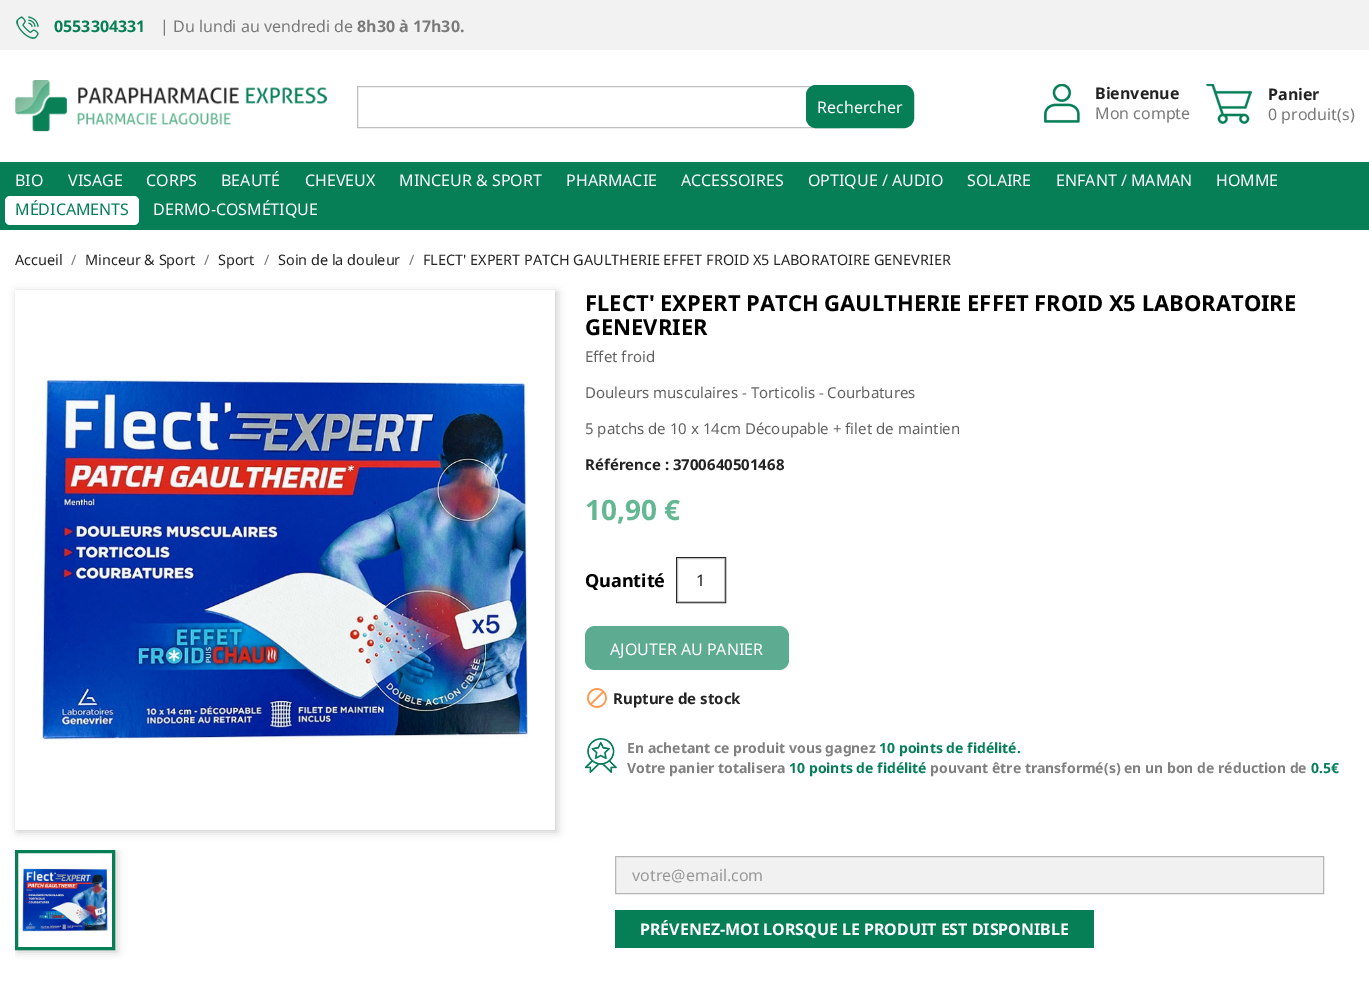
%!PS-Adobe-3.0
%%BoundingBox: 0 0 1369 1002
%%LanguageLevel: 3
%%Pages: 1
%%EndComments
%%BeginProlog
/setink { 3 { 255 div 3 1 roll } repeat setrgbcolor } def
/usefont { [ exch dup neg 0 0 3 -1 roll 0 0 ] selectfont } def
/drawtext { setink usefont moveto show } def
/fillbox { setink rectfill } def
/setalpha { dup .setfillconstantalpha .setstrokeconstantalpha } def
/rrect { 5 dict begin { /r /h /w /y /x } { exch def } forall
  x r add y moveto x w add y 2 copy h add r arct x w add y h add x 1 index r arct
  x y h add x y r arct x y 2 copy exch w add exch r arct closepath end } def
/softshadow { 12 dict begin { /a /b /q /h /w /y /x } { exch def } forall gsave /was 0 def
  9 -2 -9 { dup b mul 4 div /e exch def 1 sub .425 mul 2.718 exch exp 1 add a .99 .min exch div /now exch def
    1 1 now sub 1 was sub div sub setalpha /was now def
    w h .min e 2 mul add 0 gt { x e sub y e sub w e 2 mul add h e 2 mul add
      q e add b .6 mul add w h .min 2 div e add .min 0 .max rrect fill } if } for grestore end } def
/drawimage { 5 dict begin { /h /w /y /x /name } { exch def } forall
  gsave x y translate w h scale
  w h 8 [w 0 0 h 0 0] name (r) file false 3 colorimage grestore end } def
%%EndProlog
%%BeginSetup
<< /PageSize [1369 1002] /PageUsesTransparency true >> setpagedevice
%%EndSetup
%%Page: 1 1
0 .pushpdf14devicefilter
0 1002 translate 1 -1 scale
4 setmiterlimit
0 0 1369 1002 255 255 255 fillbox
0 0 1369 50 242 242 242 fillbox
(assets/img1.rgb) 16 16 23 23 drawimage
(0553304331) 54 32 /NotoSans-Bold 16 6 127 86 drawtext
(| Du lundi au vendredi de) 160 32 /NotoSans-Regular 16 122 122 122 drawtext
(8h30 à 17h30.) 357 32 /NotoSans-Bold 16 122 122 122 drawtext
(assets/img2.rgb) 15 80 312 52 drawimage
191 191 191 setink
357.5 86.5 482 41 rectstroke
6 127 86 setink
806.5 85.5 107 42 9.5 rrect gsave fill grestore
stroke
(Rechercher) 817 113 /NotoSans-Regular 16 255 255 255 drawtext
(assets/img3.rgb) 1044 84 36 39 drawimage
(Bienvenue) 1095 99 /NotoSans-Bold 16 35 35 35 drawtext
(Mon compte) 1095 119 /NotoSans-Regular 16 122 122 122 drawtext
(assets/img4.rgb) 1206 84 46 40 drawimage
(Panier) 1268 100 /NotoSans-Bold 16 35 35 35 drawtext
(0 produit\(s\)) 1268 120 /NotoSans-Regular 16 122 122 122 drawtext
0 162 1369 68 6 127 86 fillbox
(BIO) 15 186 /NotoSans-Regular 16 255 255 255 drawtext
(VISAGE) 68 186 /NotoSans-Regular 16 255 255 255 drawtext
(CORPS) 146 186 /NotoSans-Regular 16 255 255 255 drawtext
(BEAUTÉ) 221 186 /NotoSans-Regular 16 255 255 255 drawtext
(CHEVEUX) 305 186 /NotoSans-Regular 16 255 255 255 drawtext
(MINCEUR & SPORT) 399 186 /NotoSans-Regular 16 255 255 255 drawtext
(PHARMACIE) 566 186 /NotoSans-Regular 16 255 255 255 drawtext
(ACCESSOIRES) 681 186 /NotoSans-Regular 16 255 255 255 drawtext
(OPTIQUE / AUDIO) 808 186 /NotoSans-Regular 16 255 255 255 drawtext
(SOLAIRE) 967 186 /NotoSans-Regular 16 255 255 255 drawtext
(ENFANT / MAMAN) 1056 186 /NotoSans-Regular 16 255 255 255 drawtext
(HOMME) 1216 186 /NotoSans-Regular 16 255 255 255 drawtext
5 196 134 29 5 rrect fill
(MÉDICAMENTS) 15 215 /NotoSans-Regular 16 6 127 86 drawtext
(DERMO-COSMÉTIQUE) 153 215 /NotoSans-Regular 16 255 255 255 drawtext
(Accueil) 15 265 /NotoSans-Regular 14.4 35 35 35 drawtext
(/) 71 265 /NotoSans-Regular 14.4 122 122 122 drawtext
(Minceur & Sport) 85 265 /NotoSans-Regular 14.4 35 35 35 drawtext
(/) 204 265 /NotoSans-Regular 14.4 122 122 122 drawtext
(Sport) 218 265 /NotoSans-Regular 14.4 35 35 35 drawtext
(/) 264 265 /NotoSans-Regular 14.4 122 122 122 drawtext
(Soin de la douleur) 278 265 /NotoSans-Regular 14.4 35 35 35 drawtext
(/) 409 265 /NotoSans-Regular 14.4 122 122 122 drawtext
(FLECT' EXPERT PATCH GAULTHERIE EFFET FROID X5 LABORATOIRE GENEVRIER) 423 265 /NotoSans-Regular 14.4 35 35 35 drawtext
gsave
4 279 moveto 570 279 lineto 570 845 lineto 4 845 lineto closepath 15 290 moveto 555 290 lineto 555 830 lineto 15 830 lineto closepath eoclip newpath
0 0 0 setink
17 292 540 540 0 4 0.2 softshadow
grestore
(assets/img5.rgb) 42 376 486 368 drawimage
gsave
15 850 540 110 rectclip
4 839 moveto 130 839 lineto 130 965 lineto 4 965 lineto closepath 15 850 moveto 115 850 lineto 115 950 lineto 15 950 lineto closepath eoclip newpath
0 0 0 setink
17 852 100 100 0 4 0.2 softshadow
grestore
6 127 86 setink
3 setlinewidth
16.5 851.5 97 97 rectstroke
(assets/img6.rgb) 21 868 87 64 drawimage
(FLECT' EXPERT PATCH GAULTHERIE EFFET FROID X5 LABORATOIRE) 585 311 /NotoSans-Bold 22 0 0 0 drawtext
(GENEVRIER) 585 335 /NotoSans-Bold 22 0 0 0 drawtext
(Effet froid) 585 362 /NotoSans-Regular 15 98 97 97 drawtext
(Douleurs musculaires - Torticolis - Courbatures) 585 398 /NotoSans-Regular 15 98 97 97 drawtext
(5 patchs de 10 x 14cm Découpable + filet de maintien) 585 434 /NotoSans-Regular 15 98 97 97 drawtext
(Référence : 3700640501468) 585 470 /NotoSans-Bold 15 35 35 35 drawtext
(10,90 €) 585 520 /NotoSans-Bold 28 99 183 146 drawtext
(Quantité) 585 587 /NotoSans-Bold 18 0 0 0 drawtext
35 35 35 setink
1 setlinewidth
676.5 557.5 49 45 rectstroke
191 191 191 setink
677.5 558.5 47 43 rectstroke
(1) 696 586 /NotoSans-Regular 16 35 35 35 drawtext
93 172 145 setink
585 626 204 44 10 rrect fill
(AJOUTER AU PANIER) 610 655 /NotoSans-Regular 16 255 255 255 drawtext
(assets/img7.rgb) 587 688 20 20 drawimage
(Rupture de stock) 613 704 /NotoSans-Bold 15 35 35 35 drawtext
(assets/img8.rgb) 585 738 32 35 drawimage
(En achetant ce produit vous gagnez) 627 753 /NotoSans-Bold 14 128 128 128 drawtext
(10 points de fidélité.) 879 753 /NotoSans-Bold 14 6 127 86 drawtext
(Votre panier totalisera) 627 773 /NotoSans-Bold 14 128 128 128 drawtext
(10 points de fidélité) 789 773 /NotoSans-Bold 14 6 127 86 drawtext
(pouvant être transformé\(s\) en un bon de réduction de) 930 773 /NotoSans-Bold 14 128 128 128 drawtext
(0.5€) 1311 773 /NotoSans-Bold 14 6 127 86 drawtext
241 241 241 setink
615.5 856.5 moveto 1323.5 856.5 lineto 1323.5 893.5 lineto 615.5 893.5 lineto closepath gsave fill grestore
181 181 181 setink
stroke
(votre@email.com) 632 881 /NotoSans-Regular 16 153 153 153 drawtext
615 910 479 38 6 127 86 fillbox
(PRÉVENEZ-MOI LORSQUE LE PRODUIT EST DISPONIBLE) 640 935 /NotoSans-Bold 16 255 255 255 drawtext
.poppdf14devicefilter showpage
%%EOF
